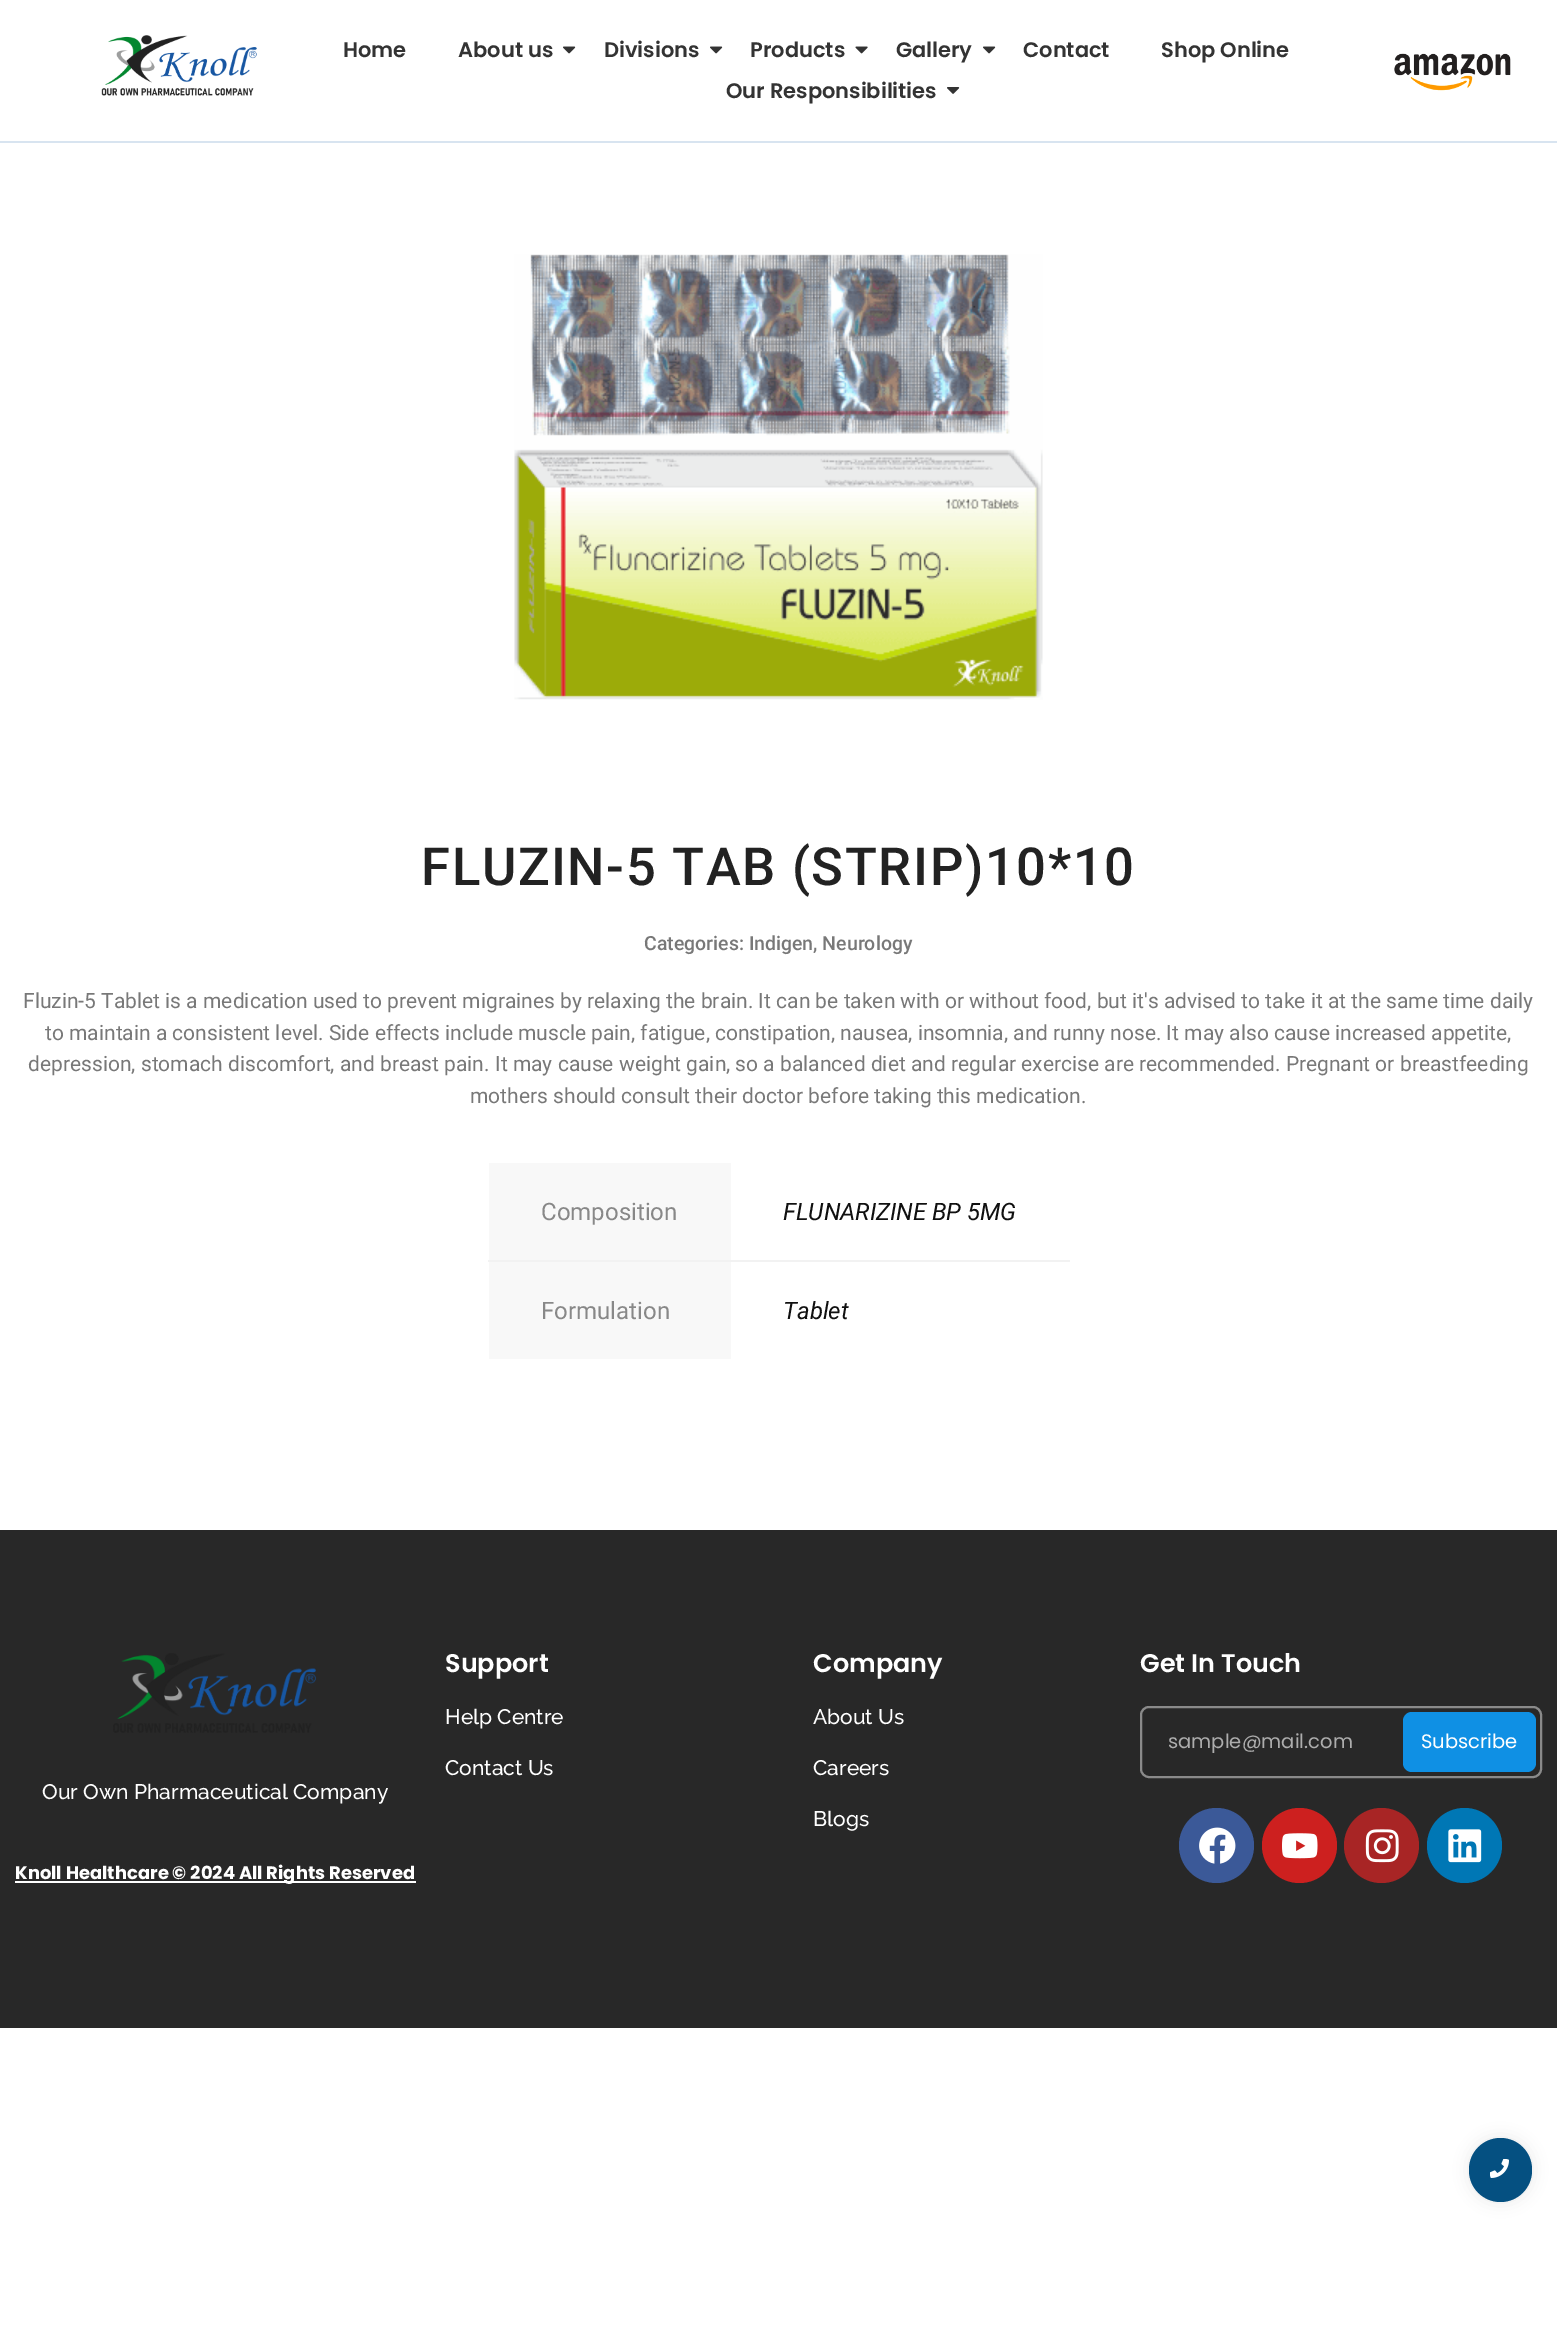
%!PS-Adobe-3.0
%%BoundingBox: 0 0 1557 2331
%%LanguageLevel: 3
%%Pages: 1
%%EndComments
%%BeginProlog
/setink { 3 { 255 div 3 1 roll } repeat setrgbcolor } def
/usefont { [ exch dup neg 0 0 3 -1 roll 0 0 ] selectfont } def
/drawtext { setink usefont moveto show } def
/fillbox { setink rectfill } def
/setalpha { dup .setfillconstantalpha .setstrokeconstantalpha } def
/disc { newpath 0 360 arc closepath } def
/rrect { 5 dict begin { /r /h /w /y /x } { exch def } forall
  x r add y moveto x w add y 2 copy h add r arct x w add y h add x 1 index r arct
  x y h add x y r arct x y 2 copy exch w add exch r arct closepath end } def
/softshadow { 12 dict begin { /a /b /q /h /w /y /x } { exch def } forall gsave /was 0 def
  9 -2 -9 { dup b mul 4 div /e exch def 1 sub .425 mul 2.718 exch exp 1 add a .99 .min exch div /now exch def
    1 1 now sub 1 was sub div sub setalpha /was now def
    w h .min e 2 mul add 0 gt { x e sub y e sub w e 2 mul add h e 2 mul add
      q e add b .6 mul add w h .min 2 div e add .min 0 .max rrect fill } if } for grestore end } def
/drawimage { 5 dict begin { /h /w /y /x /name } { exch def } forall
  gsave x y translate w h scale
  w h 8 [w 0 0 h 0 0] name (r) file false 3 colorimage grestore end } def
%%EndProlog
%%BeginSetup
<< /PageSize [1557 2331] /PageUsesTransparency true >> setpagedevice
%%EndSetup
%%Page: 1 1
0 .pushpdf14devicefilter
0 2331 translate 1 -1 scale
4 setmiterlimit
0 0 1557 2331 255 255 255 fillbox
0 141 1557 2 216 228 240 fillbox
(assets/img1.rgb) 101 35 156 61 drawimage
(Home) 343 57 /Poppins-SemiBold 21 51 51 51 drawtext
(About us) 458 57 /Poppins-SemiBold 21 51 51 51 drawtext
(assets/img2.rgb) 563 46 13 8 drawimage
(Divisions) 604 57 /Poppins-SemiBold 21 51 51 51 drawtext
(assets/img2.rgb) 710 46 13 8 drawimage
(Products) 750 57 /Poppins-SemiBold 21 51 51 51 drawtext
(assets/img3.rgb) 855 46 13 8 drawimage
(Gallery) 896 57 /Poppins-SemiBold 21 51 51 51 drawtext
(assets/img2.rgb) 983 46 13 8 drawimage
(Contact) 1023 57 /Poppins-SemiBold 21 51 51 51 drawtext
(Shop Online) 1161 57 /Poppins-SemiBold 21 51 51 51 drawtext
(Our Responsibilities) 726 98 /Poppins-SemiBold 21 51 51 51 drawtext
(assets/img4.rgb) 947 87 13 7 drawimage
(assets/img5.rgb) 1394 53 117 38 drawimage
(assets/img6.rgb) 514 254 529 446 drawimage
/Roboto-Medium 52.5 usefont
34 34 34 setink
421 885 moveto 1.65 0 (FLUZIN-5 TAB \(STRIP\)10*10) ashow
(Categories: Indigen, Neurology) 644 950 /Roboto-Medium 19.5 120 120 120 drawtext
(Fluzin-5 Tablet is a medication used to prevent migraines by relaxing the brain. It can be taken with or without food, but it's advised to take it at the same time daily) 23 1008 /Roboto-Regular 21 120 120 120 drawtext
(to maintain a consistent level. Side effects include muscle pain, fatigue, constipation, nausea, insomnia, and runny nose. It may also cause increased appetite,) 45 1040 /Roboto-Regular 21 120 120 120 drawtext
(depression, stomach discomfort, and breast pain. It may cause weight gain, so a balanced diet and regular exercise are recommended. Pregnant or breastfeeding) 28 1071 /Roboto-Regular 21 120 120 120 drawtext
(mothers should consult their doctor before taking this medication.) 470 1103 /Roboto-Regular 21 120 120 120 drawtext
489 1163 242 97 248 248 248 fillbox
(Composition) 541 1220 /Roboto-Regular 24 136 136 136 drawtext
488 1260 582 2 242 242 242 fillbox
(FLUNARIZINE BP 5MG) 783 1220 /Roboto-Italic 24 16 16 16 drawtext
489 1262 242 97 248 248 248 fillbox
(Formulation) 541 1319 /Roboto-Regular 24 136 136 136 drawtext
(Tablet) 783 1319 /Roboto-Italic 24 16 16 16 drawtext
0 1530 1557 498 40 40 40 fillbox
(assets/img7.rgb) 113 1653 203 80 drawimage
(Our Own Pharmaceutical Company) 42 1799 /Raleway-Medium 21 255 255 255 drawtext
15 1881 401 2 255 255 255 fillbox
(Knoll Healthcare © 2024 All Rights Reserved) 15 1879 /Poppins-Bold 18 255 255 255 drawtext
(Support) 445 1672 /Poppins-SemiBold 25.5 255 255 255 drawtext
(Help Centre) 445 1724 /Raleway-Medium 21 255 255 255 drawtext
(Contact Us) 445 1775 /Raleway-Medium 21 255 255 255 drawtext
(Company) 813 1672 /Poppins-SemiBold 25.5 255 255 255 drawtext
(About Us) 813 1724 /Raleway-Medium 21 255 255 255 drawtext
(Careers) 813 1775 /Raleway-Medium 21 255 255 255 drawtext
(Blogs) 813 1826 /Raleway-Medium 21 255 255 255 drawtext
(Get In Touch) 1140 1672 /Poppins-SemiBold 25.5 255 255 255 drawtext
138 138 138 setink
2 setlinewidth
1141 1707 400 70 8 rrect stroke
(sample@mail.com) 1168 1748 /Poppins-Regular 19.5 173 173 173 drawtext
15 144 228 setink
1403 1712 133 60 9 rrect fill
(Subscribe) 1421 1748 /Poppins-Regular 19.5 255 255 255 drawtext
59 89 152 setink
1216.5 1845.5 37.5 disc fill
(assets/img8.rgb) 1199 1827 37 37 drawimage
205 32 31 setink
1299.5 1845.5 37.5 disc fill
(assets/img9.rgb) 1282 1833 36 26 drawimage
168 37 37 setink
1381.5 1845.5 37.5 disc fill
(assets/img10.rgb) 1365 1829 34 34 drawimage
0 119 181 setink
1464.5 1845.5 37.5 disc fill
(assets/img11.rgb) 1448 1829 34 34 drawimage
207 207 207 setink
1469 2138 63 64 31.5 7.5 0.5 softshadow
5 80 129 setink
1469 2138 63 64 31.5 rrect fill
(assets/img12.rgb) 1490 2159 19 19 drawimage
.poppdf14devicefilter showpage
%%EOF
